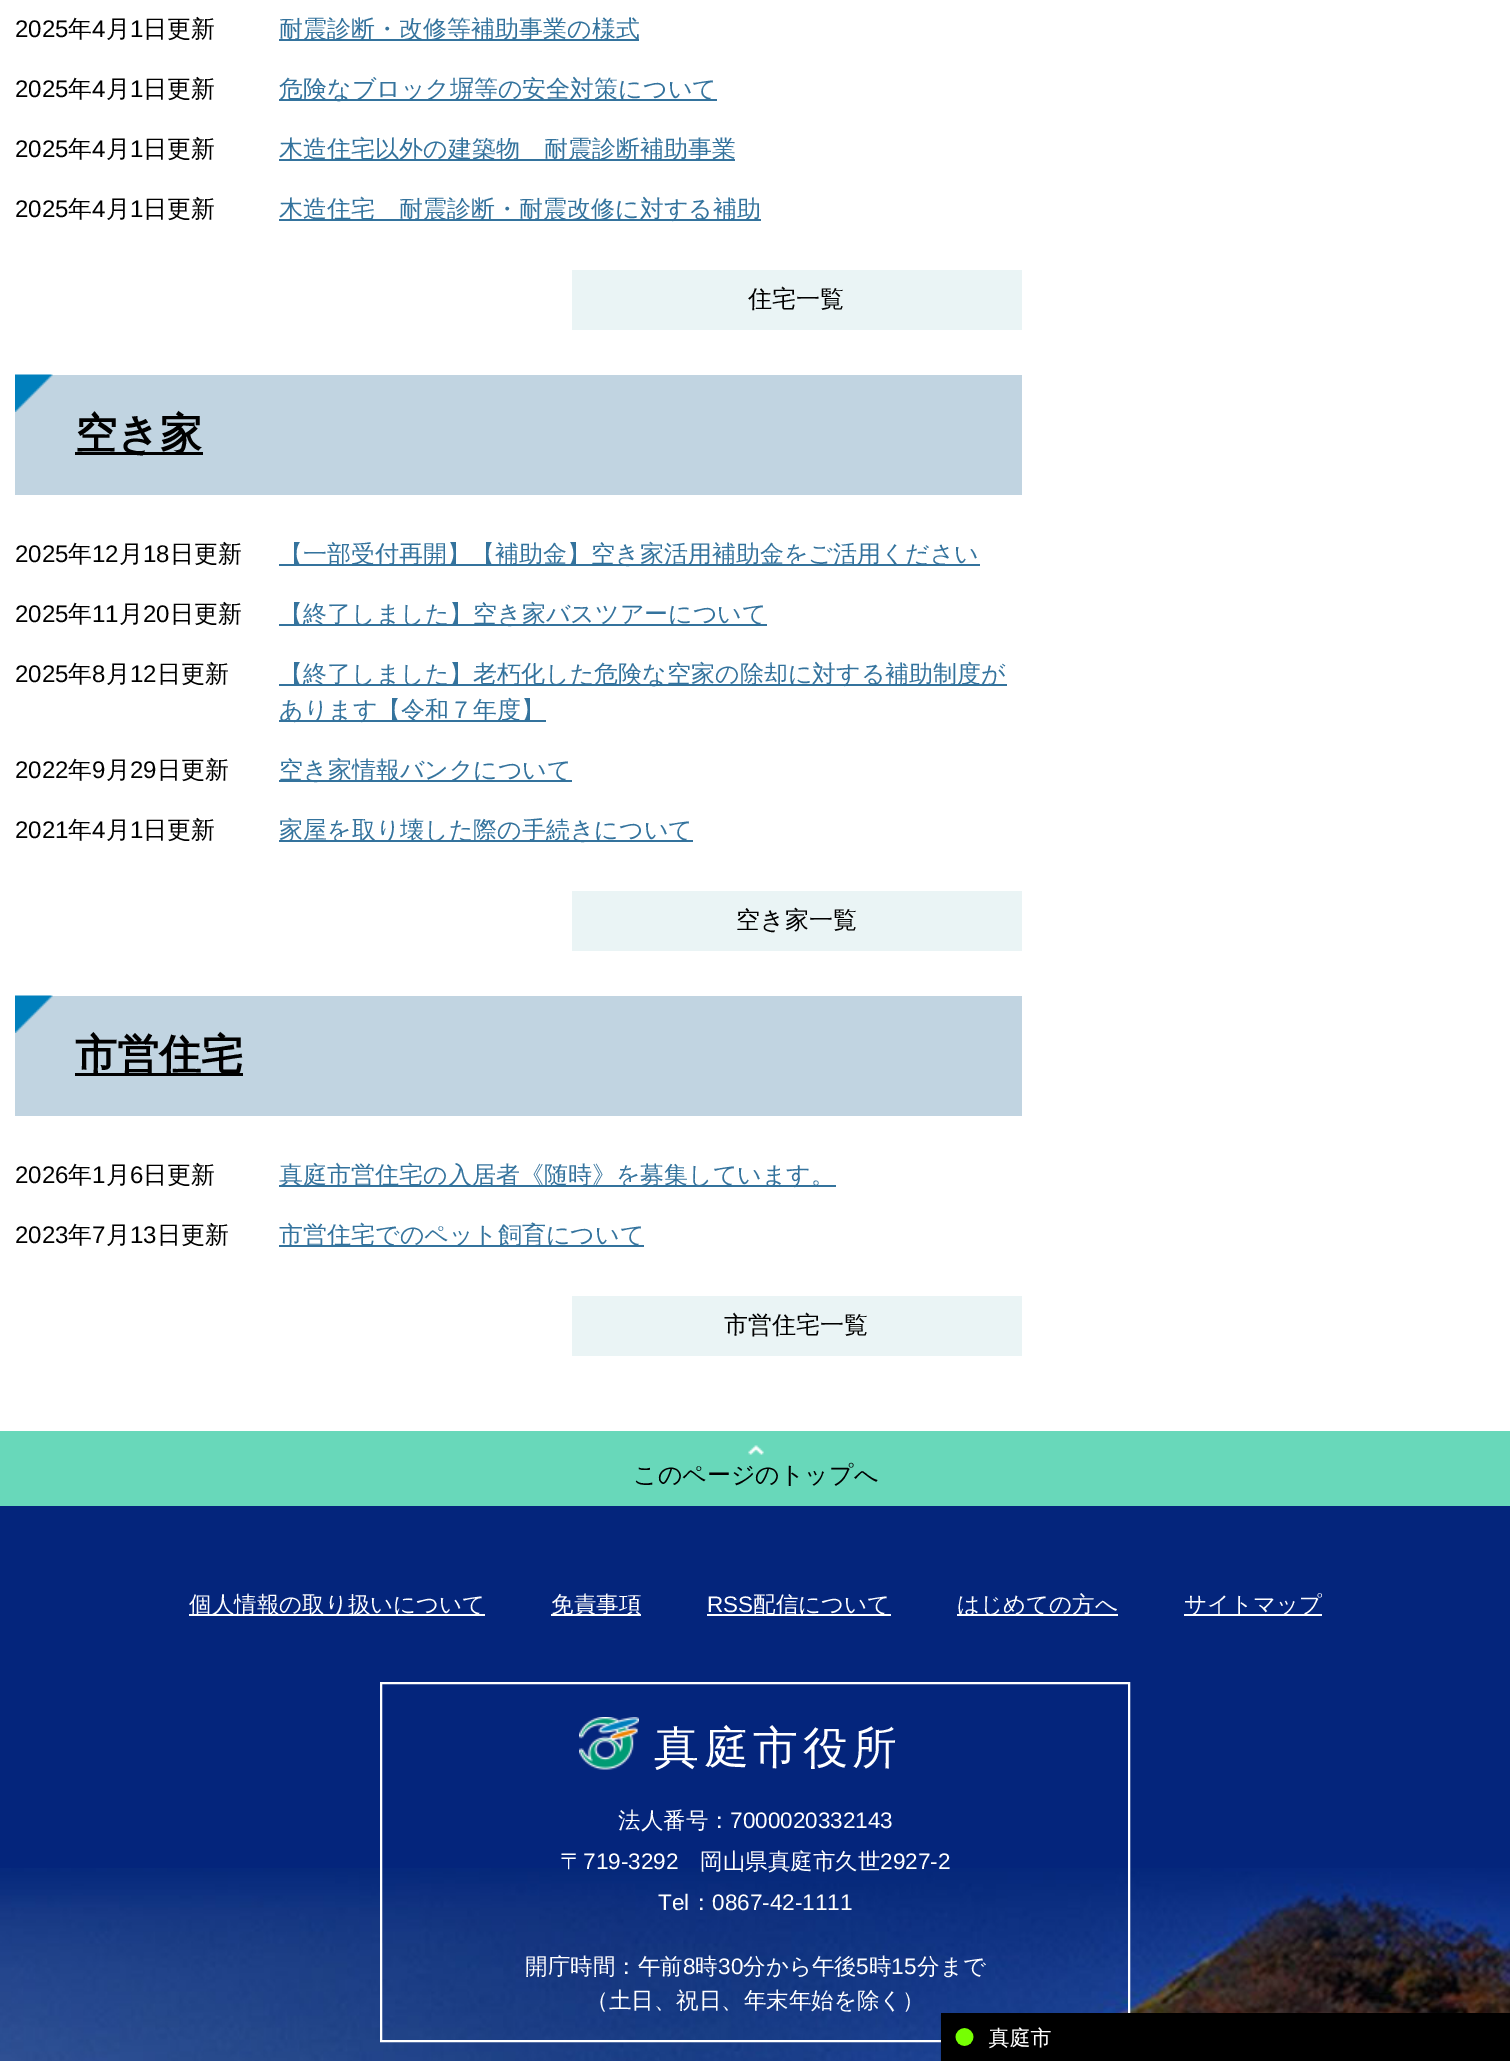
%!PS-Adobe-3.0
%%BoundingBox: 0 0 1510 2061
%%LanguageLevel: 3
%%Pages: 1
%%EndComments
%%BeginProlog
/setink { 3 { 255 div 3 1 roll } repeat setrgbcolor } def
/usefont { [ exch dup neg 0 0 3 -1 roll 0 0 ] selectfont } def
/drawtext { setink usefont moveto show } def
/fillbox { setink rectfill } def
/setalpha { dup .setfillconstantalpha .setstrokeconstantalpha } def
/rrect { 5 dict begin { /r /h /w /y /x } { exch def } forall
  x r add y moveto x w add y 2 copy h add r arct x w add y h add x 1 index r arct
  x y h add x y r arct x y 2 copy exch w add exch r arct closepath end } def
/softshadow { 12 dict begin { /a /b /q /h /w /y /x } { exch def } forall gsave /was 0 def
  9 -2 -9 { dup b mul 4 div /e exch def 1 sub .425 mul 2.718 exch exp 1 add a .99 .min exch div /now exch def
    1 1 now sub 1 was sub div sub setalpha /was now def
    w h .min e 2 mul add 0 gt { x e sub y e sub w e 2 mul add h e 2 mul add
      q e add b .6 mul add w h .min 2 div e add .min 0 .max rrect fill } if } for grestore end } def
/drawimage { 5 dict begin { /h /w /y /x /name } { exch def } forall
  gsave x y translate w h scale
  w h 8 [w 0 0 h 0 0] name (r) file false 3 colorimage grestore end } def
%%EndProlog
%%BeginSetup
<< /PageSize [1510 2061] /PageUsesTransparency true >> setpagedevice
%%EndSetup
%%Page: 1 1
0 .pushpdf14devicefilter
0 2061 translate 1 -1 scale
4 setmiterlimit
0 0 1510 2061 255 255 255 fillbox
(2025) 15 37 /LiberationSans-Regular 24 0 0 0 drawtext
(年) 68 37 /WenQuanYiZenHei-Medium 24 0 0 0 drawtext
(4) 92 37 /LiberationSans-Regular 24 0 0 0 drawtext
(月) 106 37 /WenQuanYiZenHei-Medium 24 0 0 0 drawtext
(1) 130 37 /LiberationSans-Regular 24 0 0 0 drawtext
(日更新) 143 37 /WenQuanYiZenHei-Medium 24 0 0 0 drawtext
279 39 360 2 52 115 157 fillbox
(耐震診断・改修等補助事業の様式) 279 37 /WenQuanYiZenHei-Medium 24 52 115 157 drawtext
(2025) 15 97 /LiberationSans-Regular 24 0 0 0 drawtext
(年) 68 97 /WenQuanYiZenHei-Medium 24 0 0 0 drawtext
(4) 92 97 /LiberationSans-Regular 24 0 0 0 drawtext
(月) 106 97 /WenQuanYiZenHei-Medium 24 0 0 0 drawtext
(1) 130 97 /LiberationSans-Regular 24 0 0 0 drawtext
(日更新) 143 97 /WenQuanYiZenHei-Medium 24 0 0 0 drawtext
279 99 438 2 52 115 157 fillbox
(危険なブロック塀等の安全対策について) 279 97 /WenQuanYiZenHei-Medium 24 52 115 157 drawtext
(2025) 15 157 /LiberationSans-Regular 24 0 0 0 drawtext
(年) 68 157 /WenQuanYiZenHei-Medium 24 0 0 0 drawtext
(4) 92 157 /LiberationSans-Regular 24 0 0 0 drawtext
(月) 106 157 /WenQuanYiZenHei-Medium 24 0 0 0 drawtext
(1) 130 157 /LiberationSans-Regular 24 0 0 0 drawtext
(日更新) 143 157 /WenQuanYiZenHei-Medium 24 0 0 0 drawtext
279 159 456 2 52 115 157 fillbox
(木造住宅以外の建築物　耐震診断補助事業) 279 157 /WenQuanYiZenHei-Medium 24 52 115 157 drawtext
(2025) 15 217 /LiberationSans-Regular 24 0 0 0 drawtext
(年) 68 217 /WenQuanYiZenHei-Medium 24 0 0 0 drawtext
(4) 92 217 /LiberationSans-Regular 24 0 0 0 drawtext
(月) 106 217 /WenQuanYiZenHei-Medium 24 0 0 0 drawtext
(1) 130 217 /LiberationSans-Regular 24 0 0 0 drawtext
(日更新) 143 217 /WenQuanYiZenHei-Medium 24 0 0 0 drawtext
279 219 482 2 52 115 157 fillbox
(木造住宅　耐震診断・耐震改修に対する補助) 279 217 /WenQuanYiZenHei-Medium 24 52 115 157 drawtext
572 270 450 60 234 244 245 fillbox
(住宅一覧) 748 307 /WenQuanYiZenHei-Medium 24 0 0 0 drawtext
15 375 1007 120 193 212 225 fillbox
(assets/img1.rgb) 15 374 38 38 drawimage
75 452 128 3 0 0 0 fillbox
(空き家) 75 448 /WenQuanYiZenHei-Bold 42 0 0 0 drawtext
(2025) 15 562 /LiberationSans-Regular 24 0 0 0 drawtext
(年) 68 562 /WenQuanYiZenHei-Medium 24 0 0 0 drawtext
(12) 92 562 /LiberationSans-Regular 24 0 0 0 drawtext
(月) 119 562 /WenQuanYiZenHei-Medium 24 0 0 0 drawtext
(18) 143 562 /LiberationSans-Regular 24 0 0 0 drawtext
(日更新) 170 562 /WenQuanYiZenHei-Medium 24 0 0 0 drawtext
279 564 701 2 52 115 157 fillbox
(【一部受付再開】【補助金】空き家活用補助金をご活用ください) 279 562 /WenQuanYiZenHei-Medium 24 52 115 157 drawtext
(2025) 15 622 /LiberationSans-Regular 24 0 0 0 drawtext
(年) 68 622 /WenQuanYiZenHei-Medium 24 0 0 0 drawtext
(11) 92 622 /LiberationSans-Regular 24 0 0 0 drawtext
(月) 119 622 /WenQuanYiZenHei-Medium 24 0 0 0 drawtext
(20) 143 622 /LiberationSans-Regular 24 0 0 0 drawtext
(日更新) 170 622 /WenQuanYiZenHei-Medium 24 0 0 0 drawtext
279 624 488 2 52 115 157 fillbox
(【終了しました】空き家バスツアーについて) 279 622 /WenQuanYiZenHei-Medium 24 52 115 157 drawtext
(2025) 15 682 /LiberationSans-Regular 24 0 0 0 drawtext
(年) 68 682 /WenQuanYiZenHei-Medium 24 0 0 0 drawtext
(8) 92 682 /LiberationSans-Regular 24 0 0 0 drawtext
(月) 106 682 /WenQuanYiZenHei-Medium 24 0 0 0 drawtext
(12) 130 682 /LiberationSans-Regular 24 0 0 0 drawtext
(日更新) 157 682 /WenQuanYiZenHei-Medium 24 0 0 0 drawtext
279 684 728 2 52 115 157 fillbox
(【終了しました】老朽化した危険な空家の除却に対する補助制度が) 279 682 /WenQuanYiZenHei-Medium 24 52 115 157 drawtext
279 720 267 2 52 115 157 fillbox
(あります【令和７年度】) 279 718 /WenQuanYiZenHei-Medium 24 52 115 157 drawtext
(2022) 15 778 /LiberationSans-Regular 24 0 0 0 drawtext
(年) 68 778 /WenQuanYiZenHei-Medium 24 0 0 0 drawtext
(9) 92 778 /LiberationSans-Regular 24 0 0 0 drawtext
(月) 106 778 /WenQuanYiZenHei-Medium 24 0 0 0 drawtext
(29) 130 778 /LiberationSans-Regular 24 0 0 0 drawtext
(日更新) 157 778 /WenQuanYiZenHei-Medium 24 0 0 0 drawtext
279 780 293 2 52 115 157 fillbox
(空き家情報バンクについて) 279 778 /WenQuanYiZenHei-Medium 24 52 115 157 drawtext
(2021) 15 838 /LiberationSans-Regular 24 0 0 0 drawtext
(年) 68 838 /WenQuanYiZenHei-Medium 24 0 0 0 drawtext
(4) 92 838 /LiberationSans-Regular 24 0 0 0 drawtext
(月) 106 838 /WenQuanYiZenHei-Medium 24 0 0 0 drawtext
(1) 130 838 /LiberationSans-Regular 24 0 0 0 drawtext
(日更新) 143 838 /WenQuanYiZenHei-Medium 24 0 0 0 drawtext
279 840 414 2 52 115 157 fillbox
(家屋を取り壊した際の手続きについて) 279 838 /WenQuanYiZenHei-Medium 24 52 115 157 drawtext
572 891 450 60 234 244 245 fillbox
(空き家一覧) 736 928 /WenQuanYiZenHei-Medium 24 0 0 0 drawtext
15 996 1007 120 193 212 225 fillbox
(assets/img1.rgb) 15 995 38 38 drawimage
75 1073 168 3 0 0 0 fillbox
(市営住宅) 75 1069 /WenQuanYiZenHei-Bold 42 0 0 0 drawtext
(2026) 15 1183 /LiberationSans-Regular 24 0 0 0 drawtext
(年) 68 1183 /WenQuanYiZenHei-Medium 24 0 0 0 drawtext
(1) 92 1183 /LiberationSans-Regular 24 0 0 0 drawtext
(月) 106 1183 /WenQuanYiZenHei-Medium 24 0 0 0 drawtext
(6) 130 1183 /LiberationSans-Regular 24 0 0 0 drawtext
(日更新) 143 1183 /WenQuanYiZenHei-Medium 24 0 0 0 drawtext
279 1185 557 2 52 115 157 fillbox
(真庭市営住宅の入居者《随時》を募集しています。) 279 1183 /WenQuanYiZenHei-Medium 24 52 115 157 drawtext
(2023) 15 1243 /LiberationSans-Regular 24 0 0 0 drawtext
(年) 68 1243 /WenQuanYiZenHei-Medium 24 0 0 0 drawtext
(7) 92 1243 /LiberationSans-Regular 24 0 0 0 drawtext
(月) 106 1243 /WenQuanYiZenHei-Medium 24 0 0 0 drawtext
(13) 130 1243 /LiberationSans-Regular 24 0 0 0 drawtext
(日更新) 157 1243 /WenQuanYiZenHei-Medium 24 0 0 0 drawtext
279 1245 365 2 52 115 157 fillbox
(市営住宅でのペット飼育について) 279 1243 /WenQuanYiZenHei-Medium 24 52 115 157 drawtext
572 1296 450 60 234 244 245 fillbox
(市営住宅一覧) 724 1333 /WenQuanYiZenHei-Medium 24 0 0 0 drawtext
0 1431 1510 75 104 216 186 fillbox
(assets/img2.rgb) 748 1445 16 10 drawimage
(このページのトップへ) 633 1483 /WenQuanYiZenHei-Medium 24 0 0 0 drawtext
0 1506 1510 362 4 37 124 fillbox
(assets/img3.rgb) 0 1868 1510 193 drawimage
189 1614 296 2 255 255 255 fillbox
(個人情報の取り扱いについて) 189 1612 /WenQuanYiZenHei-Medium 22.5 255 255 255 drawtext
551 1614 90 2 255 255 255 fillbox
(免責事項) 551 1612 /WenQuanYiZenHei-Medium 22.5 255 255 255 drawtext
(RSS) 707 1612 /LiberationSans-Regular 22.5 255 255 255 drawtext
707 1614 184 2 255 255 255 fillbox
(配信について) 753 1612 /WenQuanYiZenHei-Medium 22.5 255 255 255 drawtext
957 1614 161 2 255 255 255 fillbox
(はじめての方へ) 957 1612 /WenQuanYiZenHei-Medium 22.5 255 255 255 drawtext
1184 1614 138 2 255 255 255 fillbox
(サイトマップ) 1184 1612 /WenQuanYiZenHei-Medium 22.5 255 255 255 drawtext
2 setlinewidth
381 1683 748 358 rectstroke
(assets/img4.rgb) 579 1717 60 53 drawimage
/WenQuanYiZenHei-Medium 45 usefont
654 1763 moveto 4.5 0 (真庭市役所) ashow
(法人番号：) 618 1828 /WenQuanYiZenHei-Medium 22.5 255 255 255 drawtext
(7000020332143) 730 1828 /LiberationSans-Regular 22.5 255 255 255 drawtext
(〒) 560 1869 /WenQuanYiZenHei-Medium 22.5 255 255 255 drawtext
(719-3292) 583 1869 /LiberationSans-Regular 22.5 255 255 255 drawtext
(岡山県真庭市久世) 700 1869 /WenQuanYiZenHei-Medium 22.5 255 255 255 drawtext
(2927-2) 880 1869 /LiberationSans-Regular 22.5 255 255 255 drawtext
(Tel) 658 1910 /LiberationSans-Regular 22.5 255 255 255 drawtext
(：) 690 1910 /WenQuanYiZenHei-Medium 22.5 255 255 255 drawtext
(0867-42-1111) 712 1910 /LiberationSans-Regular 22.5 255 255 255 drawtext
(開庁時間：午前) 525 1974 /WenQuanYiZenHei-Medium 22.5 255 255 255 drawtext
(8) 683 1974 /LiberationSans-Regular 22.5 255 255 255 drawtext
(時) 695 1974 /WenQuanYiZenHei-Medium 22.5 255 255 255 drawtext
(30) 718 1974 /LiberationSans-Regular 22.5 255 255 255 drawtext
(分から午後) 743 1974 /WenQuanYiZenHei-Medium 22.5 255 255 255 drawtext
(5) 856 1974 /LiberationSans-Regular 22.5 255 255 255 drawtext
(時) 869 1974 /WenQuanYiZenHei-Medium 22.5 255 255 255 drawtext
(15) 891 1974 /LiberationSans-Regular 22.5 255 255 255 drawtext
(分まで) 917 1974 /WenQuanYiZenHei-Medium 22.5 255 255 255 drawtext
(（土日、祝日、年末年始を除く）) 586 2008 /WenQuanYiZenHei-Medium 22.5 255 255 255 drawtext
0 0 0 setink
941 2015 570 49 0 1 0.2 softshadow
(assets/img5.rgb) 941 2013 569 48 drawimage
.poppdf14devicefilter showpage
%%EOF
